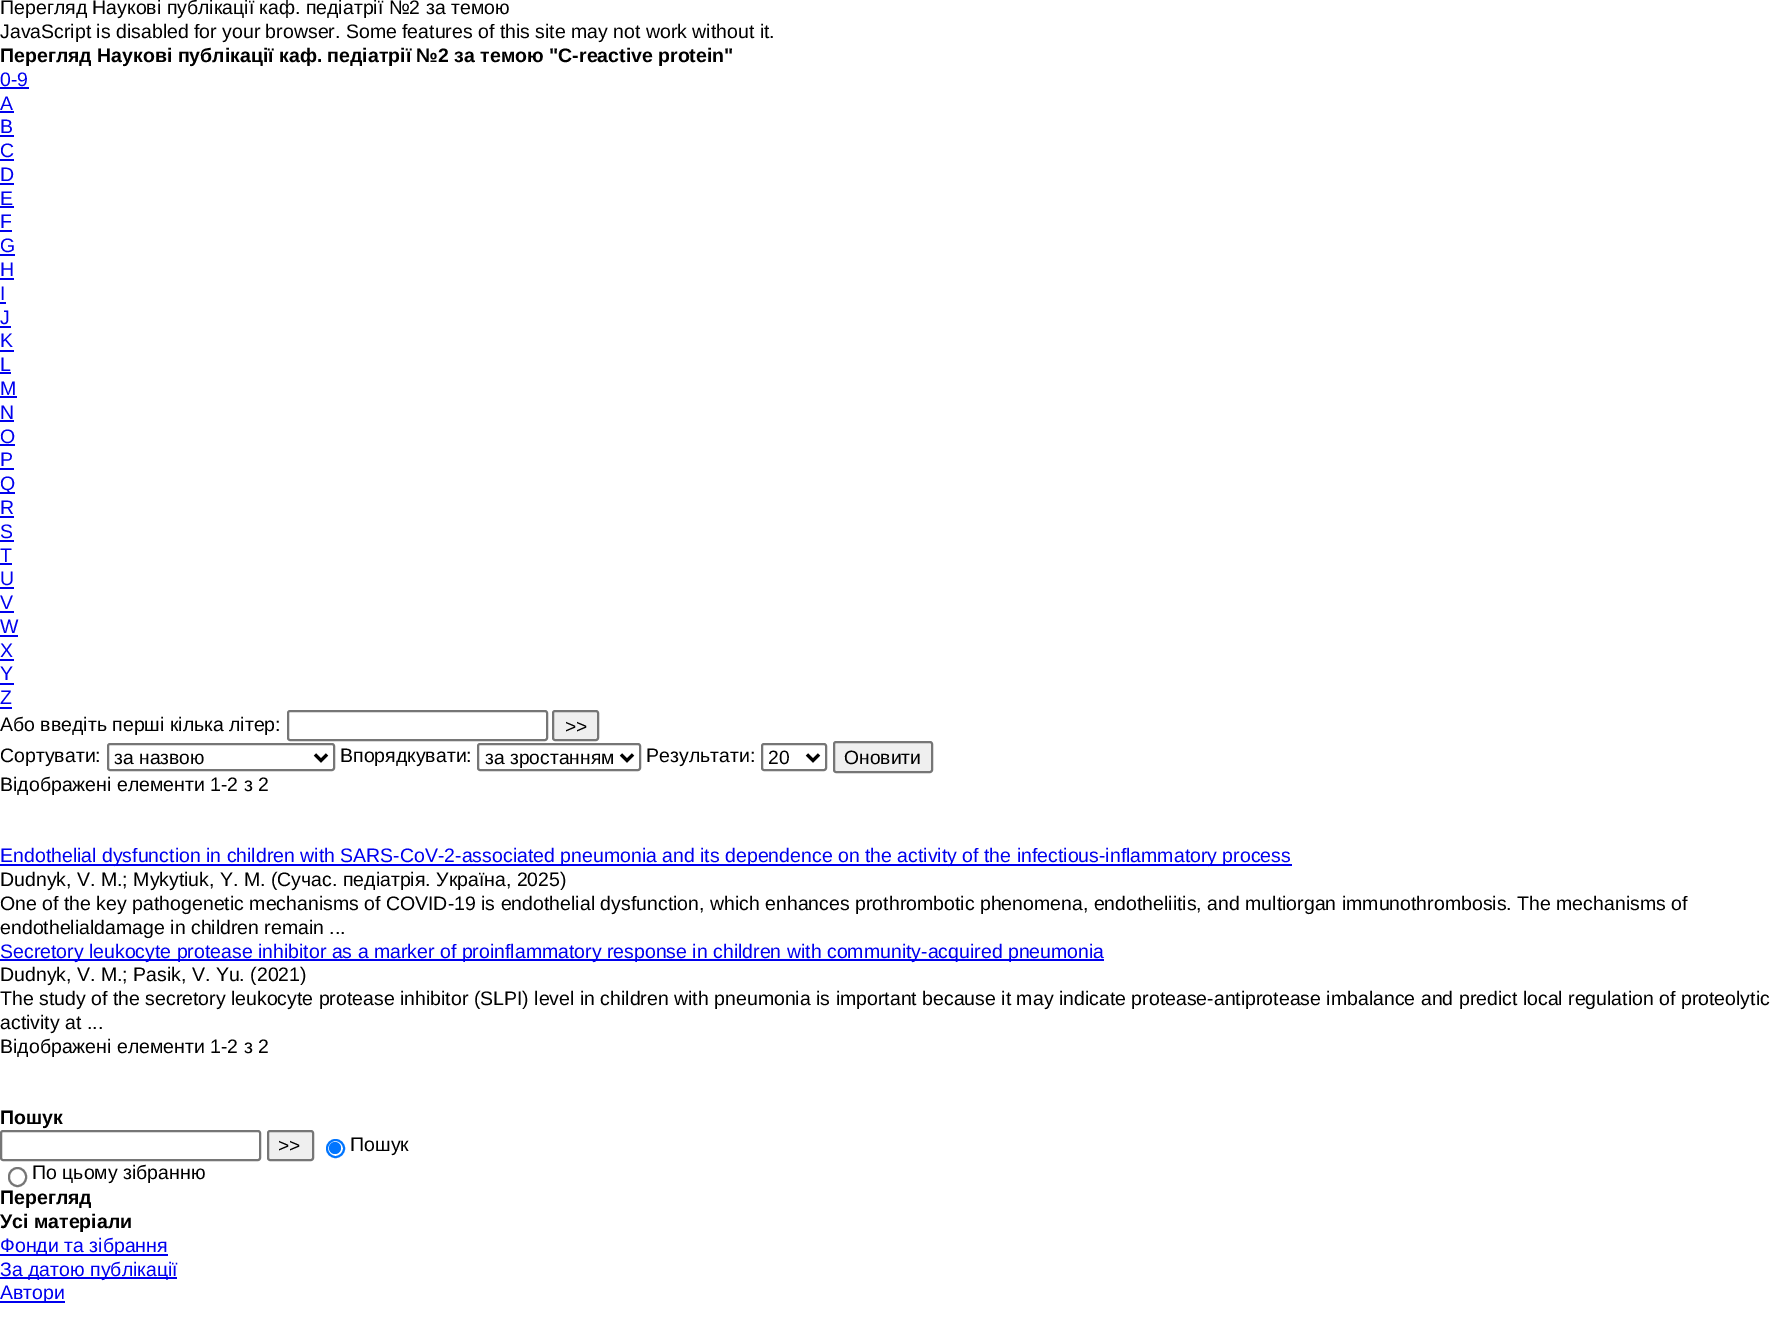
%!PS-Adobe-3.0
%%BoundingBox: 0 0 1773 1317
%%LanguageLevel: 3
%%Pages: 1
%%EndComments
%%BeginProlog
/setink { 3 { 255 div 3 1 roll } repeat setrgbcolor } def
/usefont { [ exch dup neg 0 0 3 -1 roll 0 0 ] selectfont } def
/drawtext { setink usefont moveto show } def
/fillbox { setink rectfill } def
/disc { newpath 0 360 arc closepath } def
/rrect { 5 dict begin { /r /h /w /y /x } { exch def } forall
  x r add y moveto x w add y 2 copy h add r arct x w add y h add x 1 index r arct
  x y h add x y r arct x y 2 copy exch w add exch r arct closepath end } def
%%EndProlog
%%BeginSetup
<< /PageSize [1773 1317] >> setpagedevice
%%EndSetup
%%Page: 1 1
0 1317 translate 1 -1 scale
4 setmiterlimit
0 0 1773 1317 255 255 255 fillbox
(Перегляд Наукові публікації каф. педіатрії №2 за темою) 0 14 /LiberationSans-Regular 19.5 0 0 0 drawtext
(JavaScript is disabled for your browser. Some features of this site may not work without it.) 0 38 /LiberationSans-Regular 19.5 0 0 0 drawtext
(Перегляд Наукові публікації каф. педіатрії №2 за темою "C-reactive protein") 0 62 /LiberationSans-Bold 19.5 0 0 0 drawtext
(0-9) 0 86 /LiberationSans-Regular 19.5 0 0 238 drawtext
0 87 29 2 0 0 238 fillbox
(A) 0 110 /LiberationSans-Regular 19.5 0 0 238 drawtext
0 111 14 2 0 0 238 fillbox
(B) 0 133 /LiberationSans-Regular 19.5 0 0 238 drawtext
0 135 14 2 0 0 238 fillbox
(C) 0 157 /LiberationSans-Regular 19.5 0 0 238 drawtext
0 159 14 2 0 0 238 fillbox
(D) 0 181 /LiberationSans-Regular 19.5 0 0 238 drawtext
0 183 14 2 0 0 238 fillbox
(E) 0 205 /LiberationSans-Regular 19.5 0 0 238 drawtext
0 206 14 2 0 0 238 fillbox
(F) 0 228 /LiberationSans-Regular 19.5 0 0 238 drawtext
0 230 12 2 0 0 238 fillbox
(G) 0 252 /LiberationSans-Regular 19.5 0 0 238 drawtext
0 254 15 2 0 0 238 fillbox
(H) 0 276 /LiberationSans-Regular 19.5 0 0 238 drawtext
0 278 14 2 0 0 238 fillbox
(I) 0 300 /LiberationSans-Regular 19.5 0 0 238 drawtext
0 302 6 2 0 0 238 fillbox
(J) 0 324 /LiberationSans-Regular 19.5 0 0 238 drawtext
0 326 11 2 0 0 238 fillbox
(K) 0 347 /LiberationSans-Regular 19.5 0 0 238 drawtext
0 350 14 2 0 0 238 fillbox
(L) 0 371 /LiberationSans-Regular 19.5 0 0 238 drawtext
0 372 11 2 0 0 238 fillbox
(M) 0 395 /LiberationSans-Regular 19.5 0 0 238 drawtext
0 396 17 2 0 0 238 fillbox
(N) 0 419 /LiberationSans-Regular 19.5 0 0 238 drawtext
0 420 14 2 0 0 238 fillbox
(O) 0 443 /LiberationSans-Regular 19.5 0 0 238 drawtext
0 444 15 2 0 0 238 fillbox
(P) 0 466 /LiberationSans-Regular 19.5 0 0 238 drawtext
0 468 14 2 0 0 238 fillbox
0 492 15 2 0 0 238 fillbox
(Q) 0 490 /LiberationSans-Regular 19.5 0 0 238 drawtext
(R) 0 514 /LiberationSans-Regular 19.5 0 0 238 drawtext
0 516 14 2 0 0 238 fillbox
(S) 0 538 /LiberationSans-Regular 19.5 0 0 238 drawtext
0 540 14 2 0 0 238 fillbox
(T) 0 562 /LiberationSans-Regular 19.5 0 0 238 drawtext
0 563 12 2 0 0 238 fillbox
(U) 0 585 /LiberationSans-Regular 19.5 0 0 238 drawtext
0 587 14 2 0 0 238 fillbox
(V) 0 609 /LiberationSans-Regular 19.5 0 0 238 drawtext
0 611 14 2 0 0 238 fillbox
(W) 0 633 /LiberationSans-Regular 19.5 0 0 238 drawtext
0 635 18 2 0 0 238 fillbox
(X) 0 657 /LiberationSans-Regular 19.5 0 0 238 drawtext
0 659 14 2 0 0 238 fillbox
(Y) 0 680 /LiberationSans-Regular 19.5 0 0 238 drawtext
0 683 14 2 0 0 238 fillbox
(Z) 0 704 /LiberationSans-Regular 19.5 0 0 238 drawtext
0 707 12 2 0 0 238 fillbox
(Або введіть перші кілька літер:) 0 731 /LiberationSans-Regular 19.5 0 0 0 drawtext
118 118 118 setink
2 setlinewidth
288 711 259 29 2 rrect stroke
239 239 239 setink
553 711 45 29 2 rrect gsave fill grestore
118 118 118 setink
stroke
(>>) 565 733 /LiberationSans-Regular 19.25 0 0 0 drawtext
(Сортувати:) 0 762 /LiberationSans-Regular 19.5 0 0 0 drawtext
118 118 118 setink
108 744 226 26 2 rrect stroke
0 0 0 setink
3 setlinewidth
315 754.5 moveto 321 760.5 lineto 327 754.5 lineto stroke
(за назвою) 114 764 /LiberationSans-Regular 19.25 0 0 0 drawtext
(Впорядкувати:) 340 762 /LiberationSans-Regular 19.5 0 0 0 drawtext
118 118 118 setink
2 setlinewidth
478 744 162 26 2 rrect stroke
0 0 0 setink
3 setlinewidth
621 754.5 moveto 627 760.5 lineto 633 754.5 lineto stroke
(за зростанням) 485 764 /LiberationSans-Regular 19.25 0 0 0 drawtext
(Результати:) 646 762 /LiberationSans-Regular 19.5 0 0 0 drawtext
118 118 118 setink
2 setlinewidth
762 744 64 26 2 rrect stroke
0 0 0 setink
3 setlinewidth
807 754.5 moveto 813 760.5 lineto 819 754.5 lineto stroke
(20) 768 764 /LiberationSans-Regular 19.25 0 0 0 drawtext
239 239 239 setink
834 742 98 30 2 rrect gsave fill grestore
118 118 118 setink
2 setlinewidth
stroke
(Оновити) 844 764 /LiberationSans-Regular 19.25 0 0 0 drawtext
(Відображені елементи 1-2 з 2) 0 791 /LiberationSans-Regular 19.5 0 0 0 drawtext
0 864 1292 2 0 0 238 fillbox
(Endothelial dysfunction in children with SARS-CoV-2-associated pneumonia and its dependence on the activity of the infectious-inflammatory process) 0 862 /LiberationSans-Regular 19.5 0 0 238 drawtext
(Dudnyk, V. M.; Mykytiuk, Y. M. \(Сучас. педіатрія. Україна, 2025\)) 0 886 /LiberationSans-Regular 19.5 0 0 0 drawtext
(One of the key pathogenetic mechanisms of COVID-19 is endothelial dysfunction, which enhances prothrombotic phenomena, endotheliitis, and multiorgan immunothrombosis. The mechanisms of) 0 910 /LiberationSans-Regular 19.5 0 0 0 drawtext
(endothelialdamage in children remain ...) 0 934 /LiberationSans-Regular 19.5 0 0 0 drawtext
0 959 1104 2 0 0 238 fillbox
(Secretory leukocyte protease inhibitor as a marker of proinflammatory response in children with community-acquired pneumonia) 0 958 /LiberationSans-Regular 19.5 0 0 238 drawtext
(Dudnyk, V. M.; Pasik, V. Yu. \(2021\)) 0 981 /LiberationSans-Regular 19.5 0 0 0 drawtext
(The study of the secretory leukocyte protease inhibitor \(SLPI\) level in children with pneumonia is important because it may indicate protease-antiprotease imbalance and predict local regulation of proteolytic) 0 1005 /LiberationSans-Regular 19.5 0 0 0 drawtext
(activity at ...) 0 1029 /LiberationSans-Regular 19.5 0 0 0 drawtext
(Відображені елементи 1-2 з 2) 0 1053 /LiberationSans-Regular 19.5 0 0 0 drawtext
(Пошук) 0 1124 /LiberationSans-Bold 19.5 0 0 0 drawtext
118 118 118 setink
1 1131 259 29 2 rrect stroke
239 239 239 setink
268 1131 45 29 2 rrect gsave fill grestore
118 118 118 setink
stroke
(>>) 278 1152 /LiberationSans-Regular 19.25 0 0 0 drawtext
0 117 255 setink
335.5 1148.5 8.5 disc stroke
335 1148 6 disc fill
(Пошук) 350 1151 /LiberationSans-Regular 19.5 0 0 0 drawtext
118 118 118 setink
9 1168 17 18 8.5 rrect stroke
(По цьому зібранню) 32 1179 /LiberationSans-Regular 19.5 0 0 0 drawtext
(Перегляд) 0 1204 /LiberationSans-Bold 19.5 0 0 0 drawtext
(Усі матеріали) 0 1228 /LiberationSans-Bold 19.5 0 0 0 drawtext
0 1254 168 2 0 0 238 fillbox
(Фонди та зібрання) 0 1252 /LiberationSans-Regular 19.5 0 0 238 drawtext
0 1277 177 2 0 0 238 fillbox
(За датою публікації) 0 1276 /LiberationSans-Regular 19.5 0 0 238 drawtext
0 1301 65 2 0 0 238 fillbox
(Автори) 0 1299 /LiberationSans-Regular 19.5 0 0 238 drawtext
showpage
%%EOF
